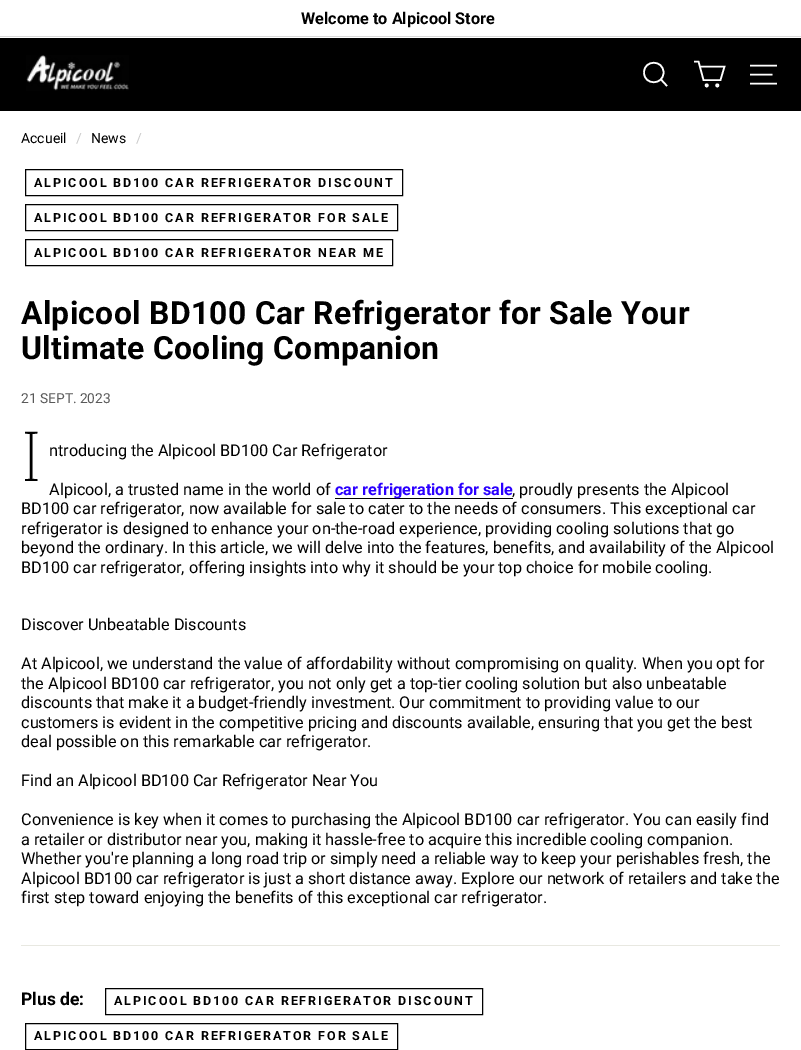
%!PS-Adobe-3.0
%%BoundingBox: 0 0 801 1050
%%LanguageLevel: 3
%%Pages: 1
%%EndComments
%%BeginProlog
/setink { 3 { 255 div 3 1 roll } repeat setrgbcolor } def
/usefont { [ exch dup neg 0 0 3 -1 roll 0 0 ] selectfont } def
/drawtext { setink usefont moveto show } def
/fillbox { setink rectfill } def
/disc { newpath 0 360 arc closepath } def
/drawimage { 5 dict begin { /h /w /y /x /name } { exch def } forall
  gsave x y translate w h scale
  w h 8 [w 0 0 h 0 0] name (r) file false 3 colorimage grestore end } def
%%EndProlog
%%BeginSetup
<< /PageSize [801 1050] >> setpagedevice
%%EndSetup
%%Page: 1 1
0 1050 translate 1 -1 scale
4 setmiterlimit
0 0 801 1050 255 255 255 fillbox
(Welcome to Alpicool Store) 301 24 /Roboto-Bold 16.25 0 0 0 drawtext
0 36 801 1 217 217 217 fillbox
0 38 801 73 0 0 0 fillbox
(assets/img1.rgb) 26 55 103 36 drawimage
255 255 255 setink
1.6 setlinewidth
663.5 72.5 moveto 663.5 85.5 644 85.5 644 72.5 curveto 644 59.5 663.5 59.5 663.5 72.5 curveto 667 86 moveto 661 79.5 lineto stroke
700 66.5 moveto 724.5 66.5 lineto 720.5 80 lineto 703.5 80 lineto 698.5 61.5 lineto 694 61.5 lineto stroke
706.7 85.4 1.1 disc stroke
717.3 85.4 1.1 disc stroke
750 65.5 moveto 777 65.5 lineto 750 74.5 moveto 772.5 74.5 lineto 750 83.5 moveto 777 83.5 lineto stroke
(Accueil) 21 143 /Roboto-Regular 14 0 0 0 drawtext
(/) 76 143 /Roboto-Regular 14 204 204 204 drawtext
(News) 91 143 /Roboto-Regular 14 0 0 0 drawtext
(/) 136 143 /Roboto-Regular 14 204 204 204 drawtext
0 0 0 setink
1 setlinewidth
25.5 169.5 377 26 rectstroke
/Roboto-Bold 12.5 usefont
34 187 moveto 1.9 0 (ALPICOOL BD100 CAR REFRIGERATOR DISCOUNT) ashow
25.5 204.5 372 26 rectstroke
34 222 moveto 1.9 0 (ALPICOOL BD100 CAR REFRIGERATOR FOR SALE) ashow
25.5 239.5 367 26 rectstroke
34 257 moveto 1.9 0 (ALPICOOL BD100 CAR REFRIGERATOR NEAR ME) ashow
/Roboto-Bold 31.9 usefont
21 324 moveto 0.3 0 (Alpicool BD100 Car Refrigerator for Sale Your) ashow
21 359 moveto 0.3 0 (Ultimate Cooling Companion) ashow
(21 SEPT. 2023) 21 403 /Roboto-Regular 13.75 89 89 89 drawtext
(I) 21 481 /NotoSans-ExtraLight 69 0 0 0 drawtext
(ntroducing the Alpicool BD100 Car Refrigerator) 49 456 /Roboto-Regular 16.25 0 0 0 drawtext
(Alpicool, a trusted name in the world of) 49 495 /Roboto-Regular 16.25 0 0 0 drawtext
335 498 178 1 0 0 0 fillbox
(car refrigeration for sale) 335 495 /Roboto-Bold 16.25 43 0 255 drawtext
(, proudly presents the Alpicool) 512 495 /Roboto-Regular 16.25 0 0 0 drawtext
(BD100 car refrigerator, now available for sale to cater to the needs of consumers. This exceptional car) 21 514 /Roboto-Regular 16.25 0 0 0 drawtext
(refrigerator is designed to enhance your on-the-road experience, providing cooling solutions that go) 21 534 /Roboto-Regular 16.25 0 0 0 drawtext
(beyond the ordinary. In this article, we will delve into the features, benefits, and availability of the Alpicool) 21 553 /Roboto-Regular 16.25 0 0 0 drawtext
(BD100 car refrigerator, offering insights into why it should be your top choice for mobile cooling.) 21 573 /Roboto-Regular 16.25 0 0 0 drawtext
(Discover Unbeatable Discounts) 21 630 /Roboto-Regular 16.25 0 0 0 drawtext
(At Alpicool, we understand the value of affordability without compromising on quality. When you opt for) 21 669 /Roboto-Regular 16.25 0 0 0 drawtext
(the Alpicool BD100 car refrigerator, you not only get a top-tier cooling solution but also unbeatable) 21 689 /Roboto-Regular 16.25 0 0 0 drawtext
(discounts that make it a budget-friendly investment. Our commitment to providing value to our) 21 708 /Roboto-Regular 16.25 0 0 0 drawtext
(customers is evident in the competitive pricing and discounts available, ensuring that you get the best) 21 728 /Roboto-Regular 16.25 0 0 0 drawtext
(deal possible on this remarkable car refrigerator.) 21 747 /Roboto-Regular 16.25 0 0 0 drawtext
(Find an Alpicool BD100 Car Refrigerator Near You) 21 786 /Roboto-Regular 16.25 0 0 0 drawtext
(Convenience is key when it comes to purchasing the Alpicool BD100 car refrigerator. You can easily find) 21 825 /Roboto-Regular 16.25 0 0 0 drawtext
(a retailer or distributor near you, making it hassle-free to acquire this incredible cooling companion.) 21 845 /Roboto-Regular 16.25 0 0 0 drawtext
(Whether you're planning a long road trip or simply need a reliable way to keep your perishables fresh, the) 21 864 /Roboto-Regular 16.25 0 0 0 drawtext
(Alpicool BD100 car refrigerator is just a short distance away. Explore our network of retailers and take the) 21 884 /Roboto-Regular 16.25 0 0 0 drawtext
(first step toward enjoying the benefits of this exceptional car refrigerator.) 21 903 /Roboto-Regular 16.25 0 0 0 drawtext
21 945 759 1 232 232 225 fillbox
(Plus de:) 21 1005 /Roboto-Bold 17.5 0 0 0 drawtext
105.5 988.5 377 26 rectstroke
/Roboto-Bold 12.5 usefont
114 1005 moveto 1.9 0 (ALPICOOL BD100 CAR REFRIGERATOR DISCOUNT) ashow
25.5 1023.5 372 26 rectstroke
34 1040 moveto 1.9 0 (ALPICOOL BD100 CAR REFRIGERATOR FOR SALE) ashow
showpage
%%EOF
